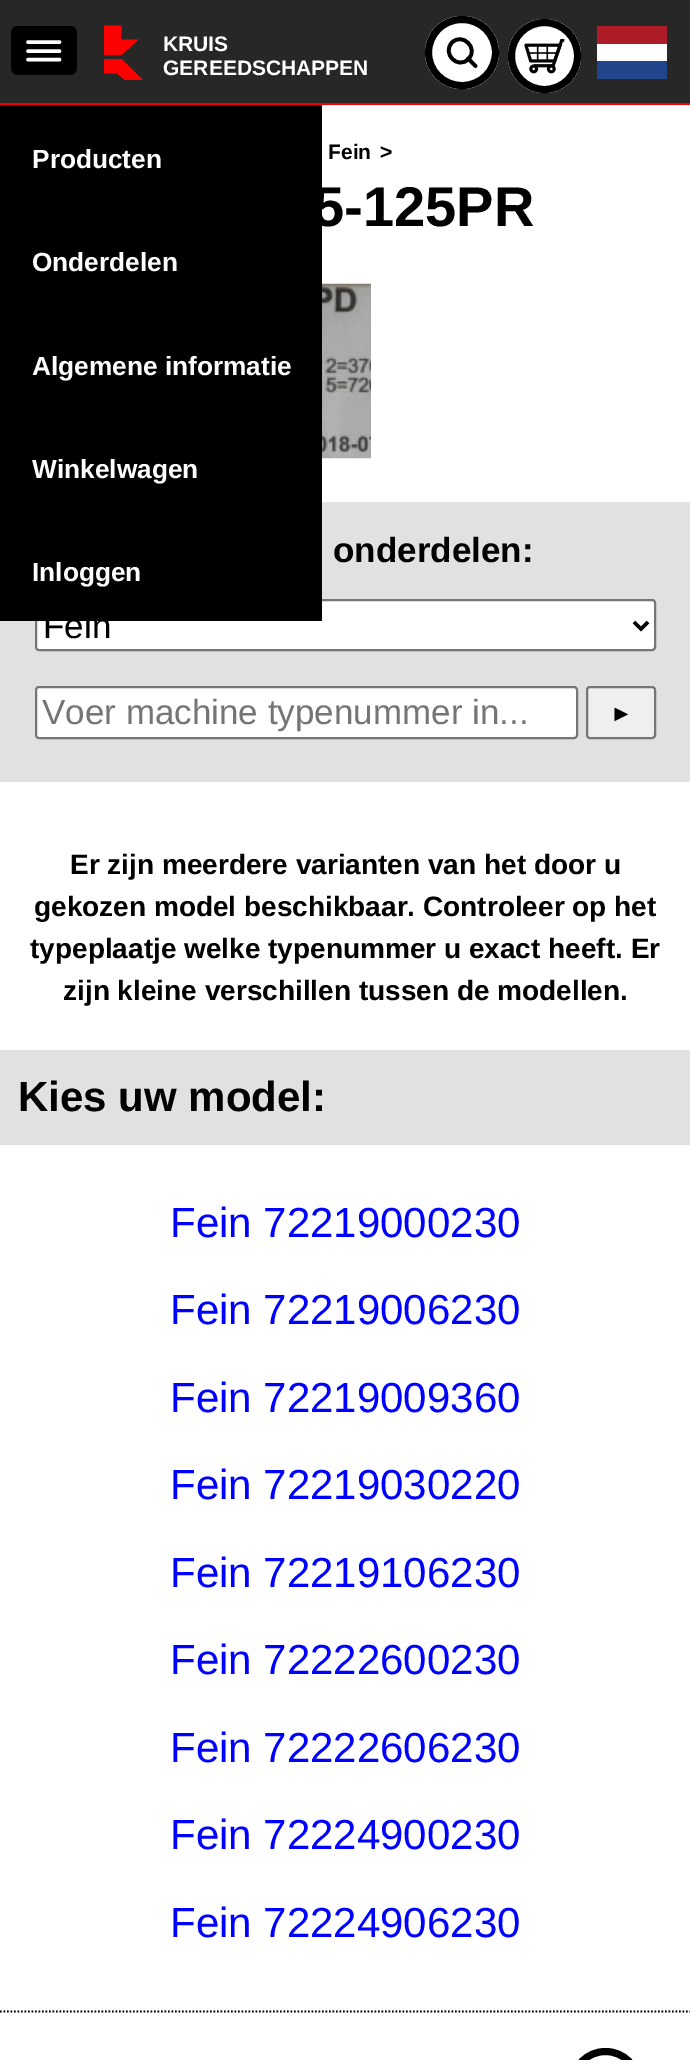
%!PS-Adobe-3.0
%%BoundingBox: 0 0 690 2060
%%LanguageLevel: 3
%%Pages: 1
%%EndComments
%%BeginProlog
/setink { 3 { 255 div 3 1 roll } repeat setrgbcolor } def
/usefont { [ exch dup neg 0 0 3 -1 roll 0 0 ] selectfont } def
/drawtext { setink usefont moveto show } def
/fillbox { setink rectfill } def
/rrect { 5 dict begin { /r /h /w /y /x } { exch def } forall
  x r add y moveto x w add y 2 copy h add r arct x w add y h add x 1 index r arct
  x y h add x y r arct x y 2 copy exch w add exch r arct closepath end } def
/drawimage { 5 dict begin { /h /w /y /x /name } { exch def } forall
  gsave x y translate w h scale
  w h 8 [w 0 0 h 0 0] name (r) file false 3 colorimage grestore end } def
%%EndProlog
%%BeginSetup
<< /PageSize [690 2060] >> setpagedevice
%%EndSetup
%%Page: 1 1
0 2060 translate 1 -1 scale
4 setmiterlimit
0 0 690 2060 255 255 255 fillbox
0 0 690 103 39 39 39 fillbox
0 103 690 2 255 0 0 fillbox
104 25.5 moveto 121.5 25.5 lineto 121.5 39.5 lineto 138.5 39.5 lineto 121.5 55 lineto 104 55 lineto closepath 104 59 moveto 121.5 59 lineto 143 80 lineto 125 80 lineto 117 73.5 lineto 104 73.5 lineto closepath fill
(KRUIS) 163 51 /LiberationSans-Bold 21 255 255 255 drawtext
(GEREEDSCHAPPEN) 163 75 /LiberationSans-Bold 21 255 255 255 drawtext
425 16 74 73 36.5 rrect fill
0 0 0 setink
3.7 setlinewidth
1 setlinecap
1 setlinejoin
475.5 66 moveto 468 58.5 lineto 468.5 59 moveto 479 48.5 462.5 32 452 42.5 curveto 441.5 53.5 458 70 468.5 59 curveto closepath stroke
7 setlinewidth
0 setlinecap
0 setlinejoin
428.5 19.5 67 66 33 rrect stroke
255 255 255 setink
508 19 73 74 36.5 rrect fill
(assets/img1.rgb) 524 39 41 35 drawimage
0 0 0 setink
511.5 22.5 66 67 33 rrect stroke
597 26 70 18 174 28 40 fillbox
597 44 70 17 255 255 255 fillbox
597 61 70 18 33 70 139 fillbox
0 0 0 setink
11 26 66 49 7 rrect fill
255 255 255 setink
3.5 setlinewidth
1 setlinecap
28 42 moveto 59.5 42 lineto 28 51 moveto 59.5 51 lineto 28 59.5 moveto 59.5 59.5 lineto stroke
0 502 690 280 226 225 225 fillbox
255 255 255 setink
36 600 619 50 3 rrect gsave fill grestore
118 118 118 setink
2 setlinewidth
0 setlinecap
stroke
0 105 322 516 0 0 0 fillbox
(Producten) 32 168 /LiberationSans-Bold 26.25 255 255 255 drawtext
(Onderdelen) 32 271 /LiberationSans-Bold 26.25 255 255 255 drawtext
(Algemene informatie) 32 375 /LiberationSans-Bold 26.25 255 255 255 drawtext
(Winkelwagen) 32 478 /LiberationSans-Bold 26.25 255 255 255 drawtext
(Inloggen) 32 581 /LiberationSans-Bold 26.25 255 255 255 drawtext
(Fein) 328 159 /LiberationSans-Bold 21 0 0 0 drawtext
(>) 380 159 /LiberationSans-Bold 21 0 0 0 drawtext
(5-125PR) 313 226 /LiberationSans-Bold 56 0 0 0 drawtext
(assets/img2.rgb) 322 283 49 176 drawimage
(onderdelen:) 333 562 /LiberationSans-Bold 35 0 0 0 drawtext
3.5 setlinewidth
634 622 moveto 641 629 lineto 648 622 lineto stroke
(Fein) 43 638 /LiberationSans-Regular 35 0 0 0 drawtext
255 255 255 setink
36 687 541 51 3 rrect gsave fill grestore
118 118 118 setink
2 setlinewidth
stroke
(Voer machine typenummer in...) 42 724 /LiberationSans-Regular 35 117 117 117 drawtext
239 239 239 setink
587 687 68 51 3 rrect gsave fill grestore
118 118 118 setink
stroke
(►) 610 721 /LiberationSans-Regular 23 0 0 0 drawtext
(Er zijn meerdere varianten van het door u) 70 874 /LiberationSans-Bold 28 0 0 0 drawtext
(gekozen model beschikbaar. Controleer op het) 34 916 /LiberationSans-Bold 28 0 0 0 drawtext
(typeplaatje welke typenummer u exact heeft. Er) 30 958 /LiberationSans-Bold 28 0 0 0 drawtext
(zijn kleine verschillen tussen de modellen.) 63 1000 /LiberationSans-Bold 28 0 0 0 drawtext
0 1050 690 95 226 225 225 fillbox
(Kies uw model:) 18 1111 /LiberationSans-Bold 42 0 0 0 drawtext
(Fein 72219000230) 170 1237 /LiberationSans-Regular 42 0 0 255 drawtext
(Fein 72219006230) 170 1324 /LiberationSans-Regular 42 0 0 255 drawtext
(Fein 72219009360) 170 1412 /LiberationSans-Regular 42 0 0 255 drawtext
(Fein 72219030220) 170 1499 /LiberationSans-Regular 42 0 0 255 drawtext
(Fein 72219106230) 170 1587 /LiberationSans-Regular 42 0 0 255 drawtext
(Fein 72222600230) 170 1674 /LiberationSans-Regular 42 0 0 255 drawtext
(Fein 72222606230) 170 1762 /LiberationSans-Regular 42 0 0 255 drawtext
(Fein 72224900230) 170 1849 /LiberationSans-Regular 42 0 0 255 drawtext
(Fein 72224906230) 170 1937 /LiberationSans-Regular 42 0 0 255 drawtext
0 0 0 setink
1.8 setlinewidth
[1.75 1.75] 0 setdash
0 2011.5 moveto 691 2011.5 lineto stroke
7 setlinewidth
[] 0 setdash
572.5 2051.5 66 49 33 rrect stroke
showpage
%%EOF
